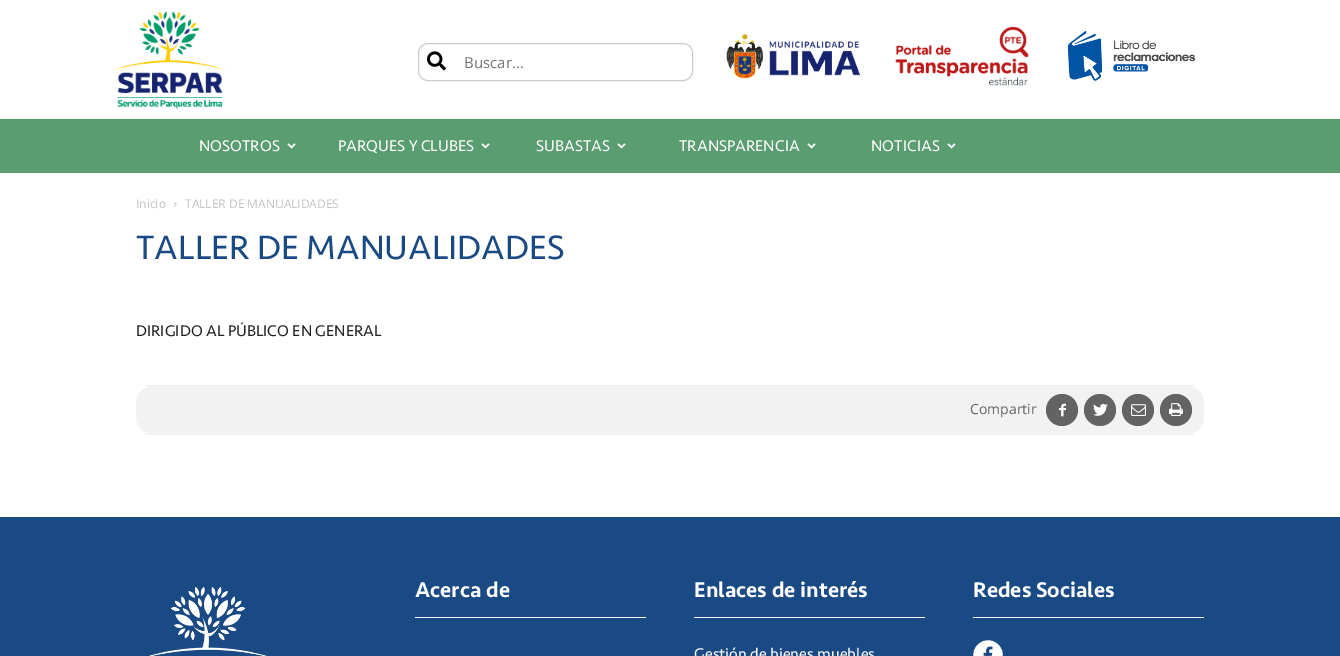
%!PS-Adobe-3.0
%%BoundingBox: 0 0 1340 656
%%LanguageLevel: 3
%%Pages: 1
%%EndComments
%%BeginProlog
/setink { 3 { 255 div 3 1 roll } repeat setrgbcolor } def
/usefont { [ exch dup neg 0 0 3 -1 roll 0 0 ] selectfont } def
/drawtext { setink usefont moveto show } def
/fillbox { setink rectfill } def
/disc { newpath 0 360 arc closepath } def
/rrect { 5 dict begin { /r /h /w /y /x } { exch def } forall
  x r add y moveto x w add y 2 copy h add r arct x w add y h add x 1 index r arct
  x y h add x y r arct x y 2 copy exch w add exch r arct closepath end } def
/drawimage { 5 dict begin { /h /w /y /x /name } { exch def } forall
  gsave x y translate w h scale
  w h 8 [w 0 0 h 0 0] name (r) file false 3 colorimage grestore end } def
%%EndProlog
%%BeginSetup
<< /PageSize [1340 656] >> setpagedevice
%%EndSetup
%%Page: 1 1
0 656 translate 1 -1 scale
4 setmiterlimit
0 0 1340 656 255 255 255 fillbox
(assets/img1.rgb) 112 11 115 98 drawimage
204 204 204 setink
418.5 43.5 274 37 9.5 rrect stroke
(assets/img2.rgb) 427 51 19 20 drawimage
(Buscar...) 464 68 /OpenSans-Regular 15 117 117 117 drawtext
(assets/img3.rgb) 726 33 134 46 drawimage
(assets/img4.rgb) 895 26 134 60 drawimage
(assets/img5.rgb) 1067 30 129 51 drawimage
0 119 1340 54 90 157 112 fillbox
(NOSOTROS) 199 151 /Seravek-Regular 16 255 255 255 drawtext
(assets/img6.rgb) 287 143 9 6 drawimage
(PARQUES Y CLUBES) 338 151 /Seravek-Regular 16 255 255 255 drawtext
(assets/img6.rgb) 481 143 9 6 drawimage
(SUBASTAS) 536 151 /Seravek-Regular 16 255 255 255 drawtext
(assets/img6.rgb) 617 143 9 6 drawimage
(TRANSPARENCIA) 679 151 /Seravek-Regular 16 255 255 255 drawtext
(assets/img6.rgb) 807 143 9 6 drawimage
(NOTICIAS) 871 151 /Seravek-Regular 16 255 255 255 drawtext
(assets/img6.rgb) 947 143 9 6 drawimage
(Inicio) 136 208 /OpenSans-Regular 12 195 195 195 drawtext
(assets/img7.rgb) 174 202 3 5 drawimage
(TALLER DE MANUALIDADES) 185 208 /OpenSans-Regular 12 195 195 195 drawtext
(TALLER DE MANUALIDADES) 136 259 /Seravek-Regular 35 26 74 132 drawtext
(DIRIGIDO AL PÚBLICO EN GENERAL) 136 336 /Seravek-Regular 16 34 34 34 drawtext
242 242 242 setink
154 386 moveto 1186 386 lineto 1196 386 1204 393 1204 403 curveto 1204 417 lineto 1204 427 1196 434 1186 434 curveto 154 434 lineto 144 434 136 427 136 417 curveto 136 403 lineto 136 393 144 386 154 386 curveto closepath fill
145 385 1050 1 237 237 237 fillbox
145 434 1050 1 237 237 237 fillbox
(Compartir) 970 414 /OpenSans-Regular 14 99 99 99 drawtext
1062 410 16 disc fill
(assets/img8.rgb) 1059 403 7 14 drawimage
1100 410 16 disc fill
(assets/img9.rgb) 1093 403 15 13 drawimage
1138 410 16 disc fill
(assets/img10.rgb) 1131 404 15 12 drawimage
1176 410 16 disc fill
(assets/img11.rgb) 1169 403 14 13 drawimage
0 517 1340 139 26 74 132 fillbox
(assets/img12.rgb) 148 587 119 69 drawimage
415 617 231 1 255 255 255 fillbox
(Acerca de) 415 597 /Seravek-Medium 22 255 255 255 drawtext
694 617 231 1 255 255 255 fillbox
(Enlaces de interés) 694 597 /Seravek-Medium 22 255 255 255 drawtext
(Gestión de bienes muebles) 694 659 /Seravek-Regular 16 255 255 255 drawtext
973 617 231 1 255 255 255 fillbox
(Redes Sociales) 973 597 /Seravek-Medium 22 255 255 255 drawtext
(assets/img13.rgb) 973 640 30 16 drawimage
showpage
%%EOF
